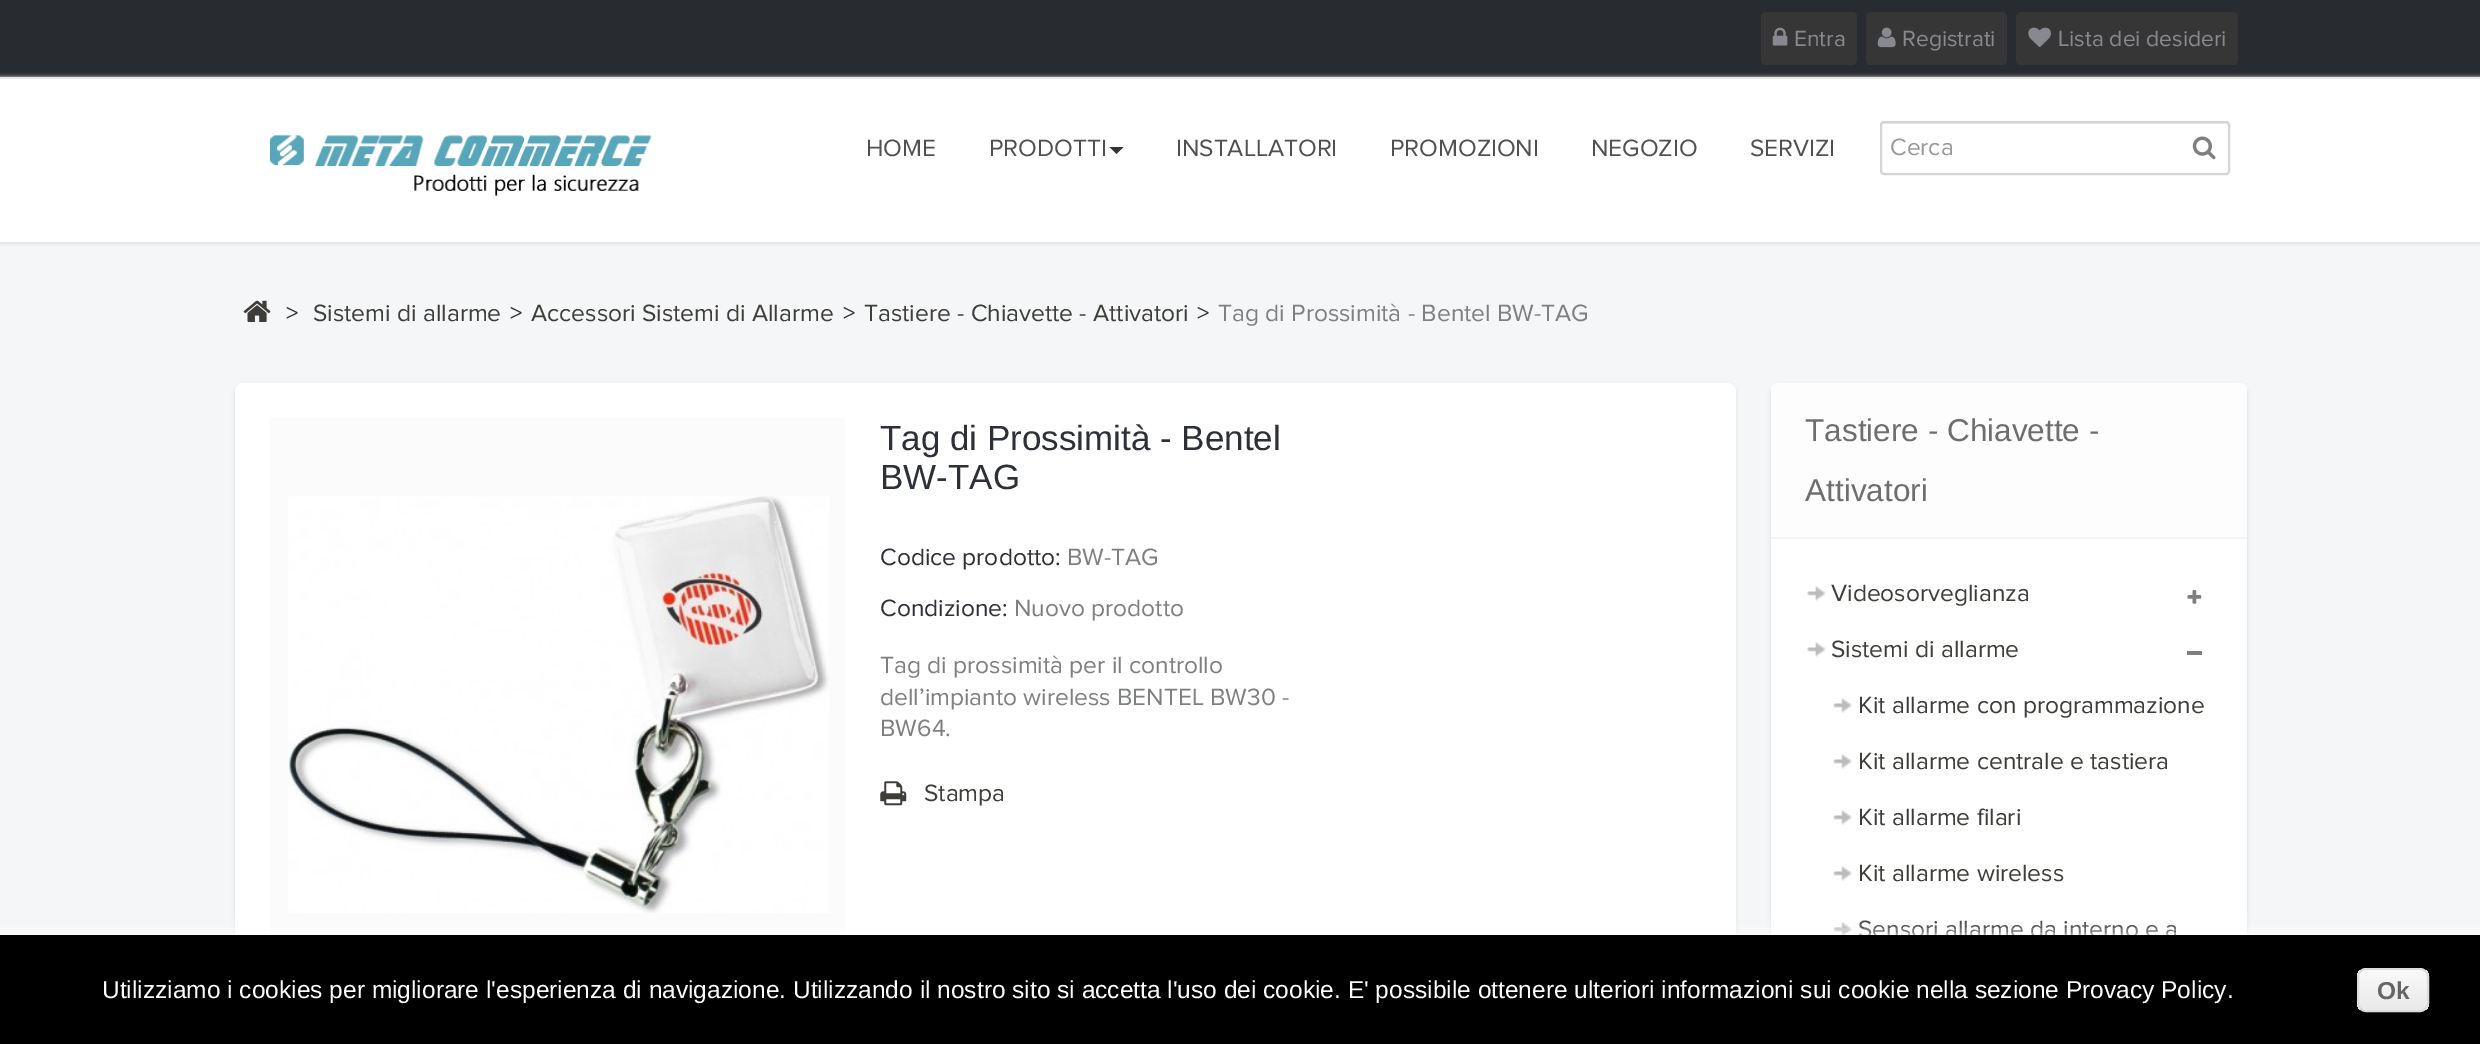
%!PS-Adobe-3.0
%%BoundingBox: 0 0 2480 1044
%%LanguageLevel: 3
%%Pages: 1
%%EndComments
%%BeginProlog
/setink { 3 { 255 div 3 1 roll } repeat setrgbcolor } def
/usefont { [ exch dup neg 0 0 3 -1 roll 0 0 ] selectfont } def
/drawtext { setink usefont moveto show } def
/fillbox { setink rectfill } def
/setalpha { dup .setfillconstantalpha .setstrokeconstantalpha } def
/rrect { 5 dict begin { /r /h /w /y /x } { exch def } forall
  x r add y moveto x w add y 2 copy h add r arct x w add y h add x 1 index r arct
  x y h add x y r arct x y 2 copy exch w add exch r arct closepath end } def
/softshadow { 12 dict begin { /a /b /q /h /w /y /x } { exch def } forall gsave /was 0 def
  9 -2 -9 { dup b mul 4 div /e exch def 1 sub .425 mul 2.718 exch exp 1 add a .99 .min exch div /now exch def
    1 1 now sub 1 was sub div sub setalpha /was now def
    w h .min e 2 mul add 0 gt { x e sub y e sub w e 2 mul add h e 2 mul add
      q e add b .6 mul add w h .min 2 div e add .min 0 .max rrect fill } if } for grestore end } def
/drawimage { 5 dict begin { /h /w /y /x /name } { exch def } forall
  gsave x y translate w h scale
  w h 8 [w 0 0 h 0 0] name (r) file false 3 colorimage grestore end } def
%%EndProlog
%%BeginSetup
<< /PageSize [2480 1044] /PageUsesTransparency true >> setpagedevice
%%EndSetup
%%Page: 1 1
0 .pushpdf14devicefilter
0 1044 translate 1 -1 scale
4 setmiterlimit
0 0 2480 1044 245 246 247 fillbox
0 0 2480 77 40 43 47 fillbox
54 54 54 setink
1761 12 96 53 5 rrect fill
(assets/img1.rgb) 1772 27 16 19 drawimage
(Entra) 1794 46 /ProximaNova-Regular 22.75 136 137 142 drawtext
54 54 54 setink
1866 12 141 53 5 rrect fill
(assets/img2.rgb) 1877 27 19 21 drawimage
(Registrati) 1902 46 /ProximaNova-Regular 22.75 136 137 142 drawtext
54 54 54 setink
2016 12 222 53 5 rrect fill
(assets/img3.rgb) 2028 27 23 20 drawimage
(Lista dei desideri) 2058 46 /ProximaNova-Regular 22.75 136 137 142 drawtext
217 218 219 setink
0 77 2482 166 0 2 1 softshadow
0 79 2480 163 255 255 255 fillbox
0 77 2480 2 231 231 231 fillbox
0 242 2480 2 231 231 231 fillbox
(assets/img4.rgb) 269 135 383 61 drawimage
(HOME) 866 156 /ProximaNova-Regular 24.5 80 80 80 drawtext
(PRODOTTI) 989 156 /ProximaNova-Regular 24.5 80 80 80 drawtext
51 51 51 setink
1109.5 147 moveto 1123.5 147 lineto 1116.5 154 lineto closepath fill
(INSTALLATORI) 1176 156 /ProximaNova-Regular 24.5 80 80 80 drawtext
(PROMOZIONI) 1390 156 /ProximaNova-Regular 24.5 80 80 80 drawtext
(NEGOZIO) 1591 156 /ProximaNova-Regular 24.5 80 80 80 drawtext
(SERVIZI) 1750 156 /ProximaNova-Regular 24.5 80 80 80 drawtext
236 236 236 setink
1883 124 moveto 2226 124 lineto 2227 124 2228 125 2228 126 curveto 2228 125 2228 123 2226 123 curveto 1883 123 lineto 1881 124 lineto 1881 126 lineto 1881 125 1882 124 1883 124 curveto closepath fill
213 213 213 setink
2 setlinewidth
1881 122 348 52 3 rrect stroke
(Cerca) 1890 155 /ProximaNova-Regular 24.5 153 153 153 drawtext
(assets/img5.rgb) 2192 136 24 24 drawimage
(assets/img6.rgb) 243 300 28 22 drawimage
(>) 286 321 /ProximaNova-Regular 24.5 51 51 51 drawtext
(Sistemi di allarme) 313 321 /ProximaNova-Regular 24.5 62 61 57 drawtext
(>) 510 321 /ProximaNova-Regular 24.5 51 51 51 drawtext
(Accessori Sistemi di Allarme) 531 321 /ProximaNova-Regular 24.5 62 61 57 drawtext
(>) 843 321 /ProximaNova-Regular 24.5 51 51 51 drawtext
(Tastiere - Chiavette - Attivatori) 864 321 /ProximaNova-Regular 24.5 62 61 57 drawtext
(>) 1197 321 /ProximaNova-Regular 24.5 51 51 51 drawtext
(Tag di Prossimità - Bentel BW-TAG) 1218 321 /ProximaNova-Regular 24.5 126 127 128 drawtext
217 218 219 setink
235 385 1501 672 9 2 1 softshadow
255 255 255 setink
235 383 1501 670 9 rrect fill
270 418 575 517 251 251 251 fillbox
(assets/img7.rgb) 288 496 541 417 drawimage
(Tag di Prossimità - Bentel) 880 450 /LiberationSans-Regular 35 46 48 57 drawtext
(BW-TAG) 880 489 /LiberationSans-Regular 35 46 48 57 drawtext
(Codice prodotto:) 880 565 /ProximaNova-Regular 24.5 46 48 57 drawtext
(BW-TAG) 1067 565 /ProximaNova-Regular 24.5 126 127 128 drawtext
(Condizione:) 880 616 /ProximaNova-Regular 24.5 46 48 57 drawtext
(Nuovo prodotto) 1014 616 /ProximaNova-Regular 24.5 126 127 128 drawtext
(Tag di prossimità per il controllo) 880 673 /ProximaNova-Regular 24.5 126 127 128 drawtext
(dell’impianto wireless BENTEL BW30 -) 880 705 /ProximaNova-Regular 24.5 126 127 128 drawtext
(BW64.) 880 736 /ProximaNova-Regular 24.5 126 127 128 drawtext
(assets/img8.rgb) 880 781 27 25 drawimage
(Stampa) 924 801 /ProximaNova-Regular 24.5 62 61 57 drawtext
217 218 219 setink
1771 385 476 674 9 2 1 softshadow
255 255 255 setink
1771 383 476 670 9 rrect fill
253 253 253 setink
1778 383 moveto 2240 383 lineto 2244 383 2247 386 2247 390 curveto 2247 539 lineto 1771 539 lineto 1771 390 lineto 1771 386 1774 383 1778 383 curveto closepath fill
1771 537 476 2 242 245 248 fillbox
(Tastiere - Chiavette -) 1805 441 /LiberationSans-Regular 31.5 110 110 110 drawtext
(Attivatori) 1805 501 /LiberationSans-Regular 31.5 110 110 110 drawtext
(assets/img9.rgb) 1807 586 19 15 drawimage
(Videosorveglianza) 1831 601 /ProximaNova-Regular 24.5 62 61 57 drawtext
(assets/img10.rgb) 2187 590 15 14 drawimage
(assets/img9.rgb) 1807 642 19 15 drawimage
(Sistemi di allarme) 1831 657 /ProximaNova-Regular 24.5 62 61 57 drawtext
2187 651 15 4 126 127 128 fillbox
(assets/img11.rgb) 1833 698 19 15 drawimage
(Kit allarme con programmazione) 1858 713 /ProximaNova-Regular 24.5 62 61 57 drawtext
(assets/img11.rgb) 1833 754 19 15 drawimage
(Kit allarme centrale e tastiera) 1858 769 /ProximaNova-Regular 24.5 62 61 57 drawtext
(assets/img11.rgb) 1833 810 19 15 drawimage
(Kit allarme filari) 1858 825 /ProximaNova-Regular 24.5 62 61 57 drawtext
(assets/img11.rgb) 1833 866 19 15 drawimage
(Kit allarme wireless) 1858 881 /ProximaNova-Regular 24.5 62 61 57 drawtext
(assets/img12.rgb) 1833 922 19 13 drawimage
(Sensori allarme da interno e a) 1858 937 /ProximaNova-Regular 24.5 62 61 57 drawtext
255 255 255 setink
0 935 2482 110 0 9 1 softshadow
0 935 2480 109 0 0 0 fillbox
(Utilizziamo i cookies per migliorare l'esperienza di navigazione. Utilizzando il nostro sito si accetta l'uso dei cookie. E' possibile ottenere ulteriori informazioni sui cookie nella sezione Provacy Policy.) 102 998 /LiberationSans-Regular 24.5 255 255 255 drawtext
gsave
2357 968 72 44 9 rrect clip newpath
gsave 2357 970 moveto 2429 970 lineto 2429 1010 lineto 2357 1010 lineto closepath clip newpath
<< /ShadingType 2 /ColorSpace /DeviceRGB /Coords [2359 970 2359 1010] /Extend [true true] /Function << /FunctionType 3 /Domain [0 1] /Functions [<< /FunctionType 2 /Domain [0 1] /C0 [0.976 0.976 0.976] /C1 [0.976 0.976 0.976] /N 1 >> << /FunctionType 2 /Domain [0 1] /C0 [0.976 0.976 0.976] /C1 [0.914 0.914 0.914] /N 1 >>] /Bounds [0.05] /Encode [0 1 0 1] >> >> shfill grestore
grestore
2366 971 moveto 2420 971 lineto 2424 971 2427 974 2427 978 curveto 2427 968 2418 970 2411 970 curveto 2375 970 lineto 2368 970 2359 968 2359 978 curveto 2359 974 2362 971 2366 971 curveto closepath fill
220 220 220 setink
2358 969 70 42 8 rrect stroke
(Ok) 2377 999 /LiberationSans-Bold 24.5 102 102 102 drawtext
.poppdf14devicefilter showpage
%%EOF
